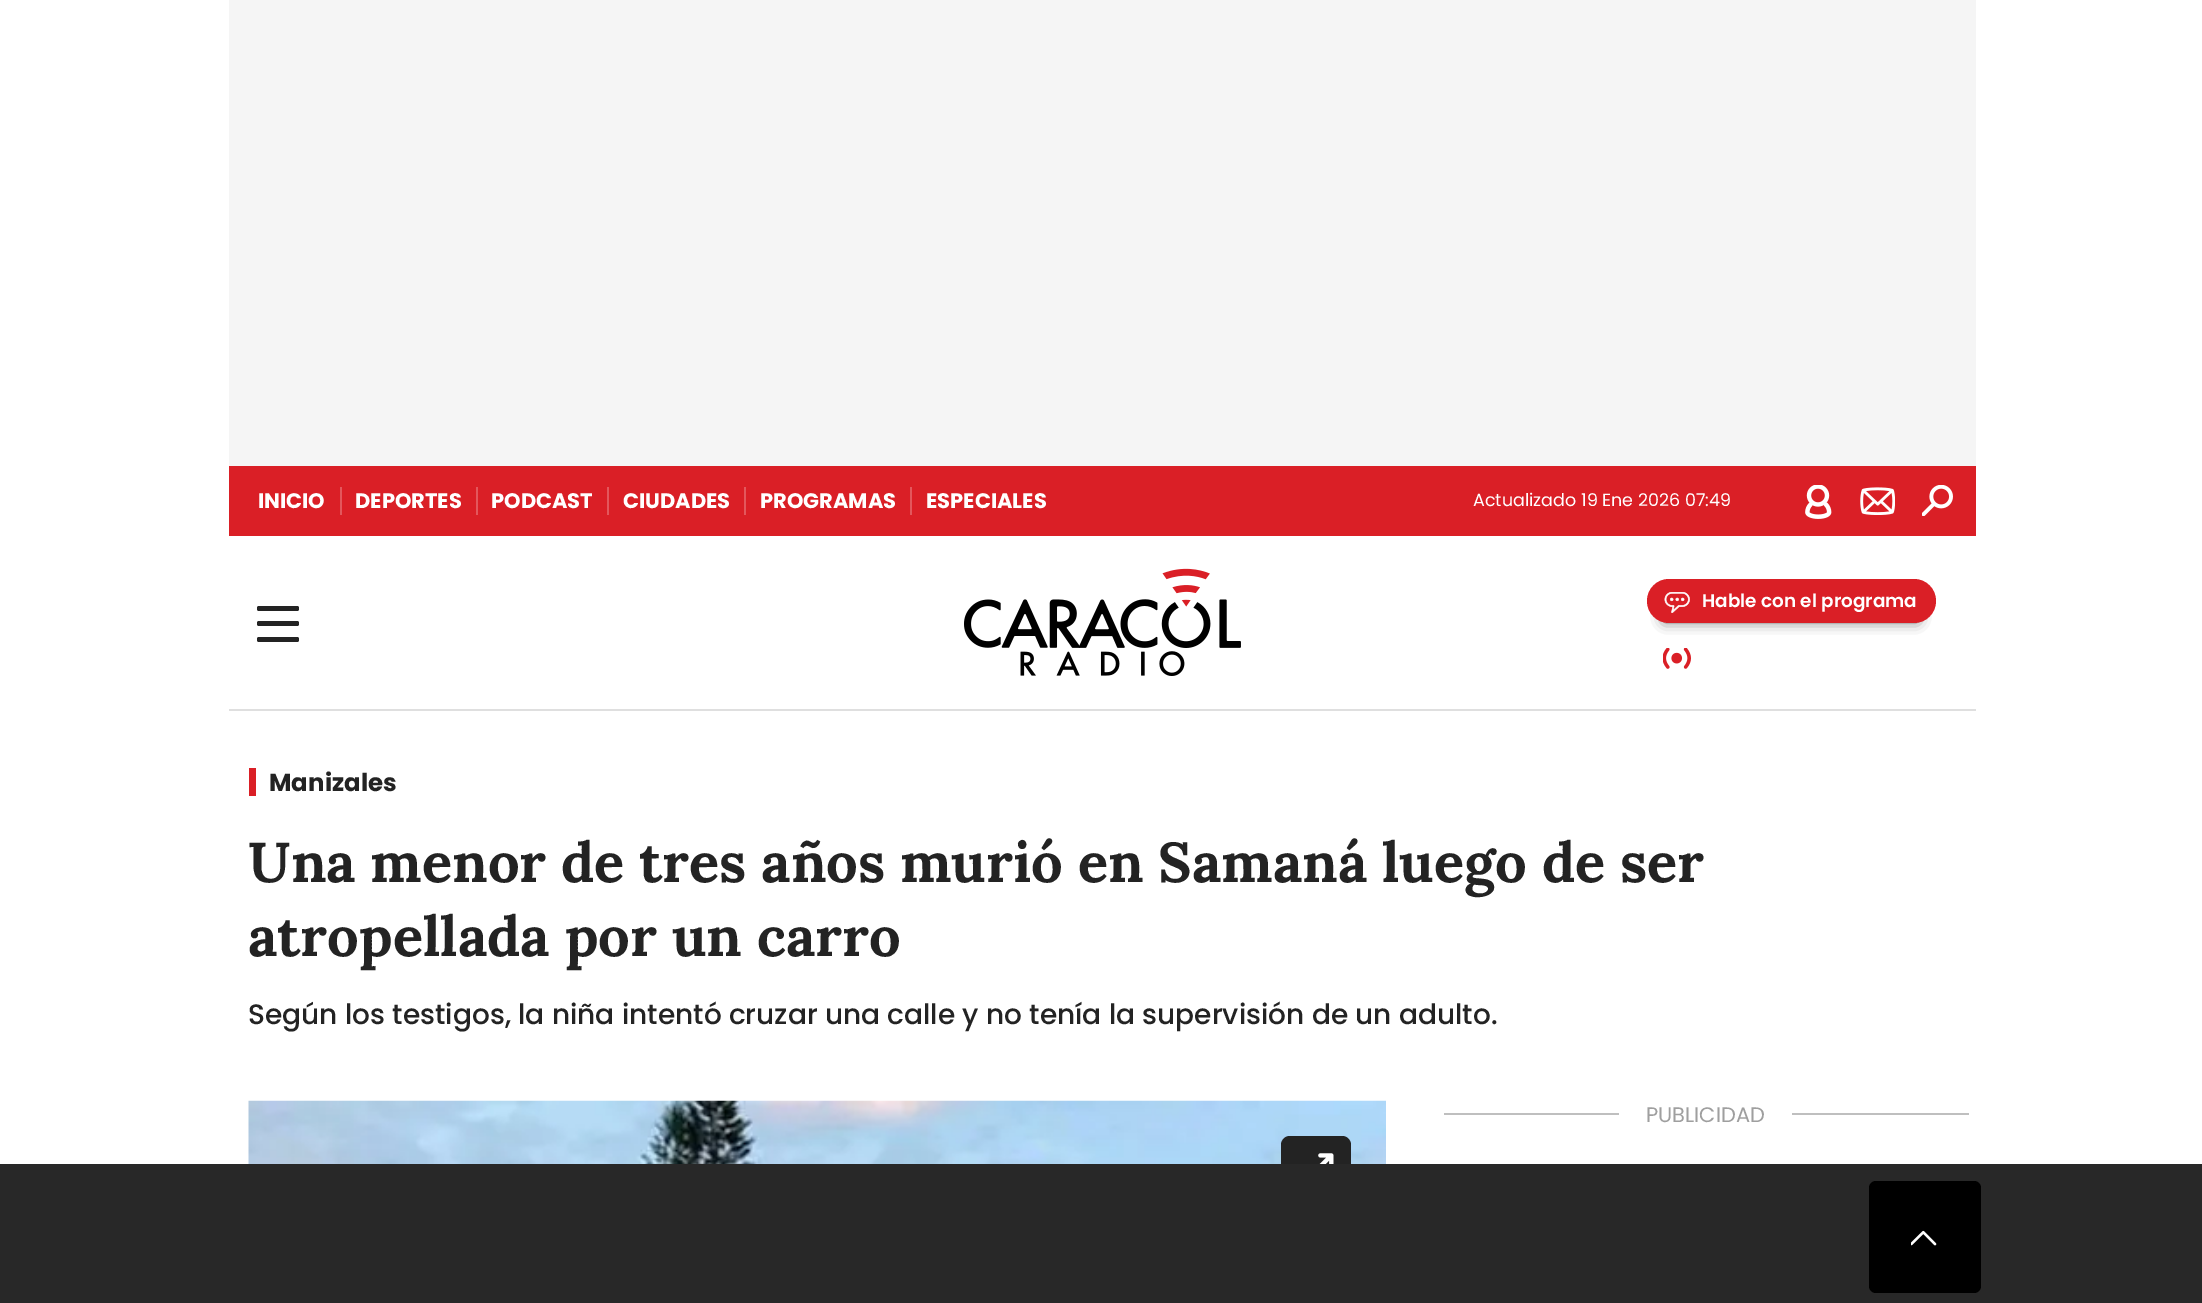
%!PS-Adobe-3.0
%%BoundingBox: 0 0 2202 1303
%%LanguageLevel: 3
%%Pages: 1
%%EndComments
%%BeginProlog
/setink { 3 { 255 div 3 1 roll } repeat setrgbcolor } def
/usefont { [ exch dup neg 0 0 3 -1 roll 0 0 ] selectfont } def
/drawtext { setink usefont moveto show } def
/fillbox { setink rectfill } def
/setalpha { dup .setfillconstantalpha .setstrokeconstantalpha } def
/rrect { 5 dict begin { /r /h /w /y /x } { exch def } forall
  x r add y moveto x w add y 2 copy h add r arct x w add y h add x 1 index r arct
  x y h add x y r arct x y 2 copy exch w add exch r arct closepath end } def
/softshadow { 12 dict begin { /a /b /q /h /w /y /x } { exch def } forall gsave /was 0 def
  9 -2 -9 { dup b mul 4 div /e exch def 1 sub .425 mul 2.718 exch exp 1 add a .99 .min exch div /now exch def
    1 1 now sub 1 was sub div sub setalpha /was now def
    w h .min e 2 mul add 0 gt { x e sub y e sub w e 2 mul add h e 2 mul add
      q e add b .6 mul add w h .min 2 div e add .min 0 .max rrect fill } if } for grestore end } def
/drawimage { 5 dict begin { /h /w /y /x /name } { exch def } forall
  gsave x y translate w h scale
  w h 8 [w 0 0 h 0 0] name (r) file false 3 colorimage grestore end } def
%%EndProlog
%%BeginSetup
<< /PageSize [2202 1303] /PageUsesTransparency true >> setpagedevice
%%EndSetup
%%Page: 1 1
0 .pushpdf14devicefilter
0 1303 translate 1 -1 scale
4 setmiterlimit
0 0 2202 1303 255 255 255 fillbox
229 0 1747 466 245 245 245 fillbox
229 466 1747 70 218 31 38 fillbox
(INICIO) 258 508 /Poppins-Bold 21 255 255 255 drawtext
340 487 2 28 227 87 92 fillbox
(DEPORTES) 355 508 /Poppins-Bold 21 255 255 255 drawtext
476 487 2 28 227 87 92 fillbox
(PODCAST) 491 508 /Poppins-Bold 21 255 255 255 drawtext
607 487 2 28 227 87 92 fillbox
(CIUDADES) 623 508 /Poppins-Bold 21 255 255 255 drawtext
744 487 2 28 227 87 92 fillbox
(PROGRAMAS) 760 508 /Poppins-Bold 21 255 255 255 drawtext
910 487 2 28 227 87 92 fillbox
(ESPECIALES) 926 508 /Poppins-Bold 21 255 255 255 drawtext
(Actualizado 19 Ene 2026 07:49) 1473 506 /Poppins-Regular 17.5 255 255 255 drawtext
(assets/img1.rgb) 1805 485 27 34 drawimage
(assets/img2.rgb) 1860 487 35 28 drawimage
(assets/img3.rgb) 1922 485 31 31 drawimage
229 709 1747 2 223 223 223 fillbox
(assets/img4.rgb) 964 568 277 108 drawimage
0 0 0 setink
1666 614 250 5 2.5 7 1 softshadow
218 31 38 setink
1647 579 289 44 22 rrect fill
(assets/img5.rgb) 1664 592 26 21 drawimage
(Hable con el programa) 1702 607 /Poppins-SemiBold 18.4 255 255 255 drawtext
(assets/img6.rgb) 1663 648 28 21 drawimage
35 35 35 setink
257 621 42 5 2 rrect fill
257 606 42 5 2 rrect fill
257 637 42 5 2 rrect fill
249 768 7 28 218 31 38 fillbox
(Manizales) 269 791 /Poppins-Bold 24.5 35 35 35 drawtext
(Una menor de tres años murió en Samaná luego de ser) 248 882 /Lora-Bold 56 35 35 35 drawtext
(atropellada por un carro) 248 956 /Lora-Bold 56 35 35 35 drawtext
(Según los testigos, la niña intentó cruzar una calle y no tenía la supervisión de un adulto.) 248 1024 /Poppins-Medium 28 35 35 35 drawtext
(assets/img7.rgb) 248 1100 1138 64 drawimage
1281 1136 70 70 9 rrect fill
(assets/img8.rgb) 1318 1153 16 11 drawimage
1444 1113 525 2 191 191 191 fillbox
1619 1113 173 2 255 255 255 fillbox
(PUBLICIDAD) 1646 1122 /Poppins-Regular 21 159 159 159 drawtext
0 1164 1995 139 40 40 40 fillbox
1995 1164 207 139 40 40 40 fillbox
0 0 0 setink
1869 1181 112 112 7 rrect fill
(assets/img9.rgb) 1911 1230 26 16 drawimage
.poppdf14devicefilter showpage
%%EOF
